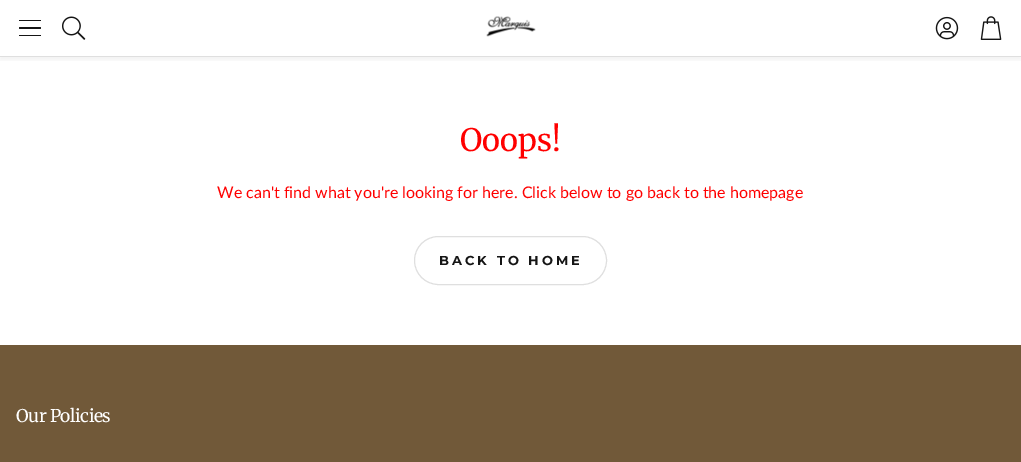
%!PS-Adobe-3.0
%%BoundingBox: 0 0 1021 462
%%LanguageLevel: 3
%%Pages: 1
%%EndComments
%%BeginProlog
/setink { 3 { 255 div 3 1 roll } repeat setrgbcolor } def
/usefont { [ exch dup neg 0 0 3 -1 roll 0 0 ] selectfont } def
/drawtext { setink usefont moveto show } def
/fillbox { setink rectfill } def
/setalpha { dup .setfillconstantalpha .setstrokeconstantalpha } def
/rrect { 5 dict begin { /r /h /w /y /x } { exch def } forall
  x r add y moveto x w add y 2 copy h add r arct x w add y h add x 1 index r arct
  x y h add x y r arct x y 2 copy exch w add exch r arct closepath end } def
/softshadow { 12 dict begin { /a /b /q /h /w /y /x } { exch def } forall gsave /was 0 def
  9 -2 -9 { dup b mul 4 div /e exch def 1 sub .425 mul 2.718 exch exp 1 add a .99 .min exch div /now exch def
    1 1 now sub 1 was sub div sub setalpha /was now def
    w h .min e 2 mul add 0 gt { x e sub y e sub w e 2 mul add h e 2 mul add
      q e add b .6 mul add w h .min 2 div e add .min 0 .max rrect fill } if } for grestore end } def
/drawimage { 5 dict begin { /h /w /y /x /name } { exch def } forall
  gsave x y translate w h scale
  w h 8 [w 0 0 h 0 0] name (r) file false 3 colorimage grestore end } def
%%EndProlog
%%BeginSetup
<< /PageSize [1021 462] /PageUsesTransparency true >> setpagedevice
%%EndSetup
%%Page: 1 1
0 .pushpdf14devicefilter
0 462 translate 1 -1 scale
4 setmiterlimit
0 0 1021 462 255 255 255 fillbox
gsave
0 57 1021 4 rectclip
0 0 0 setink
0 3 1021 57 0 3 0.05 softshadow
grestore
0 56 1021 1 223 223 223 fillbox
21 21 21 setink
19 20 22 1 0.5 rrect fill
19 27 22 2 1 rrect fill
19 35 22 1 0.5 rrect fill
(assets/img1.rgb) 62 16 24 24 drawimage
(assets/img2.rgb) 486 16 50 21 drawimage
(assets/img3.rgb) 935 16 24 24 drawimage
(assets/img4.rgb) 980 16 22 24 drawimage
(Ooops!) 460 151 /Merriweather-Regular 31 255 0 0 drawtext
(We can't find what you're looking for here. Click below to go back to the homepage) 217 198 /Lato-Regular 16 255 0 0 drawtext
223 223 223 setink
414.5 236.5 192 48 24 rrect stroke
/Montserrat-Bold 13 usefont
21 21 21 setink
439 265 moveto 3 0 (BACK TO HOME) ashow
0 345 1021 117 113 89 57 fillbox
/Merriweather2-Regular 17.5 usefont
255 255 255 setink
16 422 moveto -0.5 0 (Our Policies) ashow
.poppdf14devicefilter showpage
%%EOF
